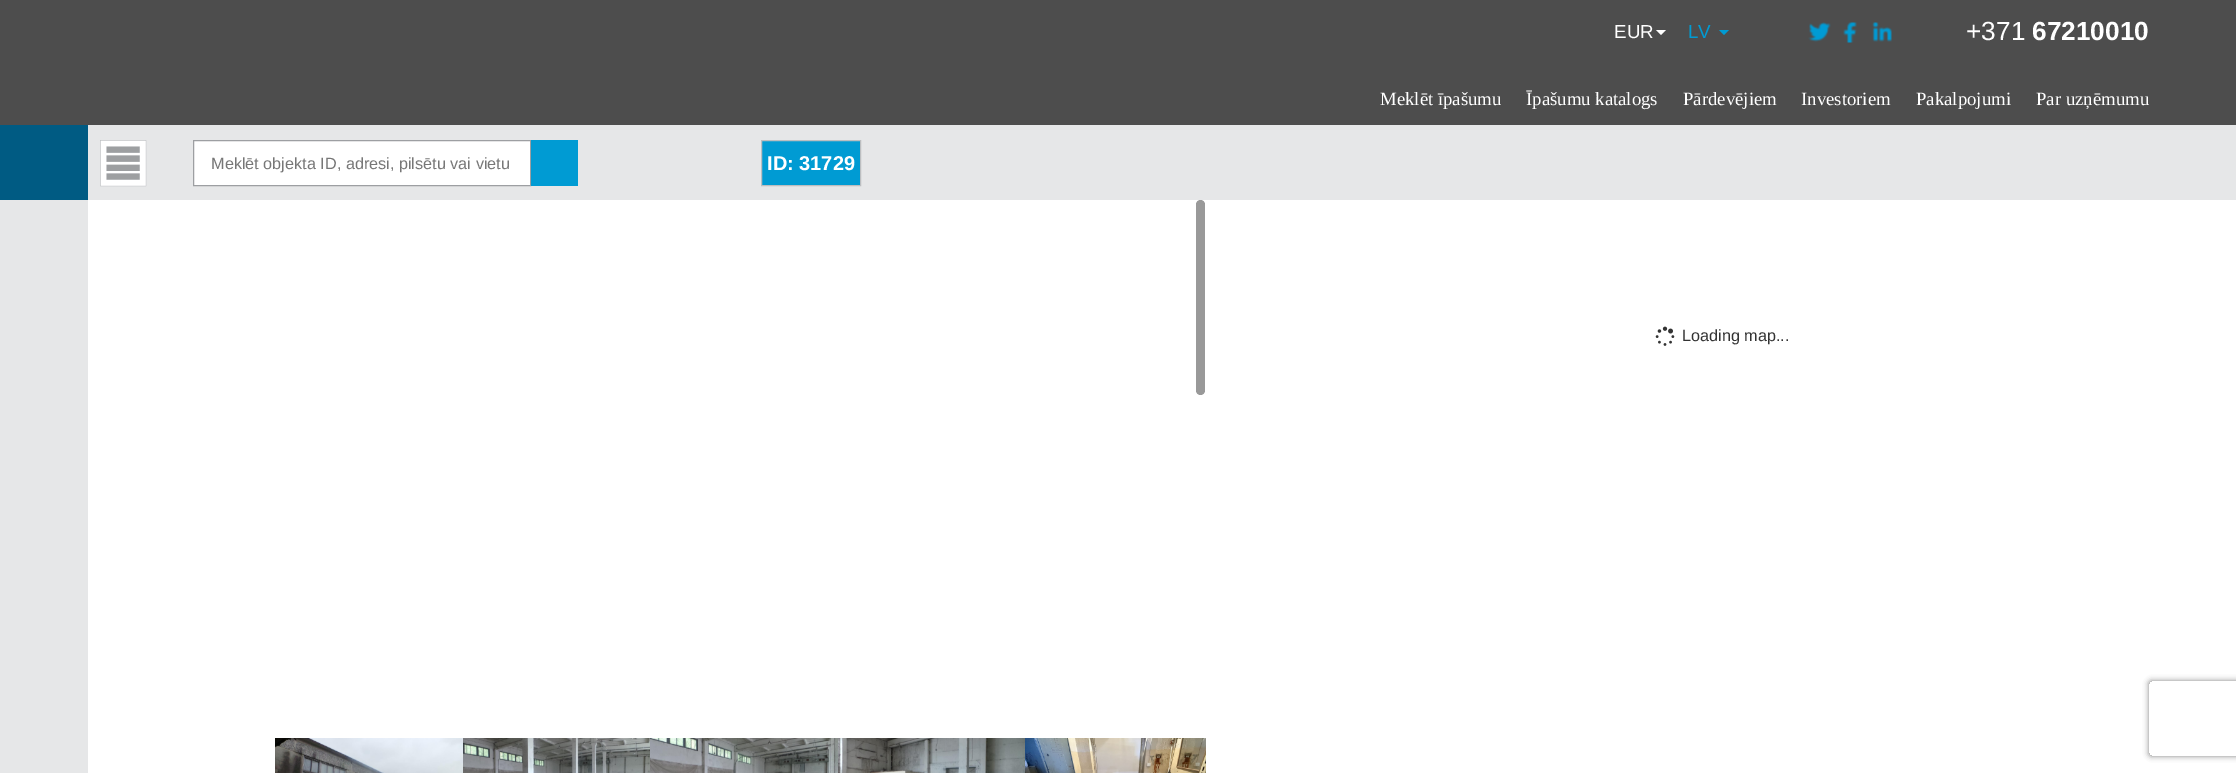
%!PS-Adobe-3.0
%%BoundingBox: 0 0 2236 773
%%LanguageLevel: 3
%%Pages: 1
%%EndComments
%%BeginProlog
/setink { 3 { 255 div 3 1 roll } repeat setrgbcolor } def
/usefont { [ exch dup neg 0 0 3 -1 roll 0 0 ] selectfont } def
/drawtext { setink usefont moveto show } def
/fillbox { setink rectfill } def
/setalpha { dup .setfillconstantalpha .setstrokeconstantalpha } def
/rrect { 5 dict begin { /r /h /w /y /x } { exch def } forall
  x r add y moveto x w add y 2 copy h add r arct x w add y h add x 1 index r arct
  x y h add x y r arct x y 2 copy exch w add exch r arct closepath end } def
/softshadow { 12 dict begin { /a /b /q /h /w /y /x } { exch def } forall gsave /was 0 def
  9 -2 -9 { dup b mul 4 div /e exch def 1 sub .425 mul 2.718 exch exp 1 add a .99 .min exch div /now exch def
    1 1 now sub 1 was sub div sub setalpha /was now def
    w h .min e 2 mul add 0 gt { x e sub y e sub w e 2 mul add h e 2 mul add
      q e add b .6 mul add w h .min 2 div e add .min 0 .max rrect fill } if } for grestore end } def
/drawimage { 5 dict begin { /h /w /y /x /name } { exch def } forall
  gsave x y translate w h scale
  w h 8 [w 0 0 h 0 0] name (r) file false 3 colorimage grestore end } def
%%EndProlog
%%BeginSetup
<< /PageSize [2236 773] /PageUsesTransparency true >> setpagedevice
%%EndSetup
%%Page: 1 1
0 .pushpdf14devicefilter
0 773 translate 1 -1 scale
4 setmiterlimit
0 0 2236 773 255 255 255 fillbox
0 0 2236 125 77 77 77 fillbox
(EUR) 1614 38 /LiberationSans-Regular 18.75 255 255 255 drawtext
1656 30 moveto 1666 30 lineto 1661 35 lineto closepath fill
(LV) 1688 38 /LiberationSans-Regular 18.75 0 155 211 drawtext
1719 30 moveto 1729 30 lineto 1724 35 lineto closepath fill
(assets/img1.rgb) 1808 22 23 20 drawimage
(assets/img2.rgb) 1843 22 14 21 drawimage
(assets/img3.rgb) 1872 22 20 20 drawimage
(+371) 1966 40 /LiberationSans-Regular 26.25 255 255 255 drawtext
(67210010) 2032 40 /LiberationSans-Bold 26.25 255 255 255 drawtext
(Meklēt īpašumu) 1380 105 /LiberationSerif-Regular 18.75 255 255 255 drawtext
(Īpašumu katalogs) 1526 105 /LiberationSerif-Regular 18.75 255 255 255 drawtext
(Pārdevējiem) 1683 105 /LiberationSerif-Regular 18.75 255 255 255 drawtext
(Investoriem) 1801 105 /LiberationSerif-Regular 18.75 255 255 255 drawtext
(Pakalpojumi) 1916 105 /LiberationSerif-Regular 18.75 255 255 255 drawtext
(Par uzņēmumu) 2036 105 /LiberationSerif-Regular 18.75 255 255 255 drawtext
88 125 2148 75 230 231 232 fillbox
0 125 88 75 0 91 131 fillbox
(assets/img4.rgb) 100 140 47 47 drawimage
255 255 255 setink
193.5 140.5 moveto 530.5 140.5 lineto 530.5 185.5 lineto 193.5 185.5 lineto closepath gsave fill grestore
157 159 162 setink
stroke
(Meklēt objekta ID, adresi, pilsētu vai vietu) 211 169 /LiberationSans-Regular 16.25 119 119 119 drawtext
531 140 47 46 0 155 211 fillbox
761.5 140.5 moveto 860.5 140.5 lineto 860.5 185.5 lineto 761.5 185.5 lineto closepath gsave fill grestore
188 190 192 setink
stroke
(ID: 31729) 767 170 /LiberationSans-Bold 20 255 255 255 drawtext
0 200 88 573 230 231 232 fillbox
153 153 153 setink
1196 200 9 195 4.5 rrect fill
(assets/img5.rgb) 275 738 188 35 drawimage
(assets/img6.rgb) 463 738 187 35 drawimage
(assets/img7.rgb) 650 738 188 35 drawimage
(assets/img8.rgb) 838 738 187 35 drawimage
(assets/img9.rgb) 1025 738 181 35 drawimage
(assets/img10.rgb) 1655 326 20 20 drawimage
(Loading map...) 1682 341 /LiberationSans-Regular 16.25 51 51 51 drawtext
gsave
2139 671 moveto 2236 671 lineto 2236 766 lineto 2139 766 lineto closepath 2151.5 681 moveto 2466.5 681 lineto 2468 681 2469 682 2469 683.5 curveto 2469 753.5 lineto 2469 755 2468 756 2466.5 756 curveto 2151.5 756 lineto 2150 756 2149 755 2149 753.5 curveto 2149 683.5 lineto 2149 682 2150 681 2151.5 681 curveto closepath eoclip newpath
128 128 128 setink
2149 681 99 75 2.5 3 1 softshadow
grestore
.poppdf14devicefilter showpage
%%EOF
